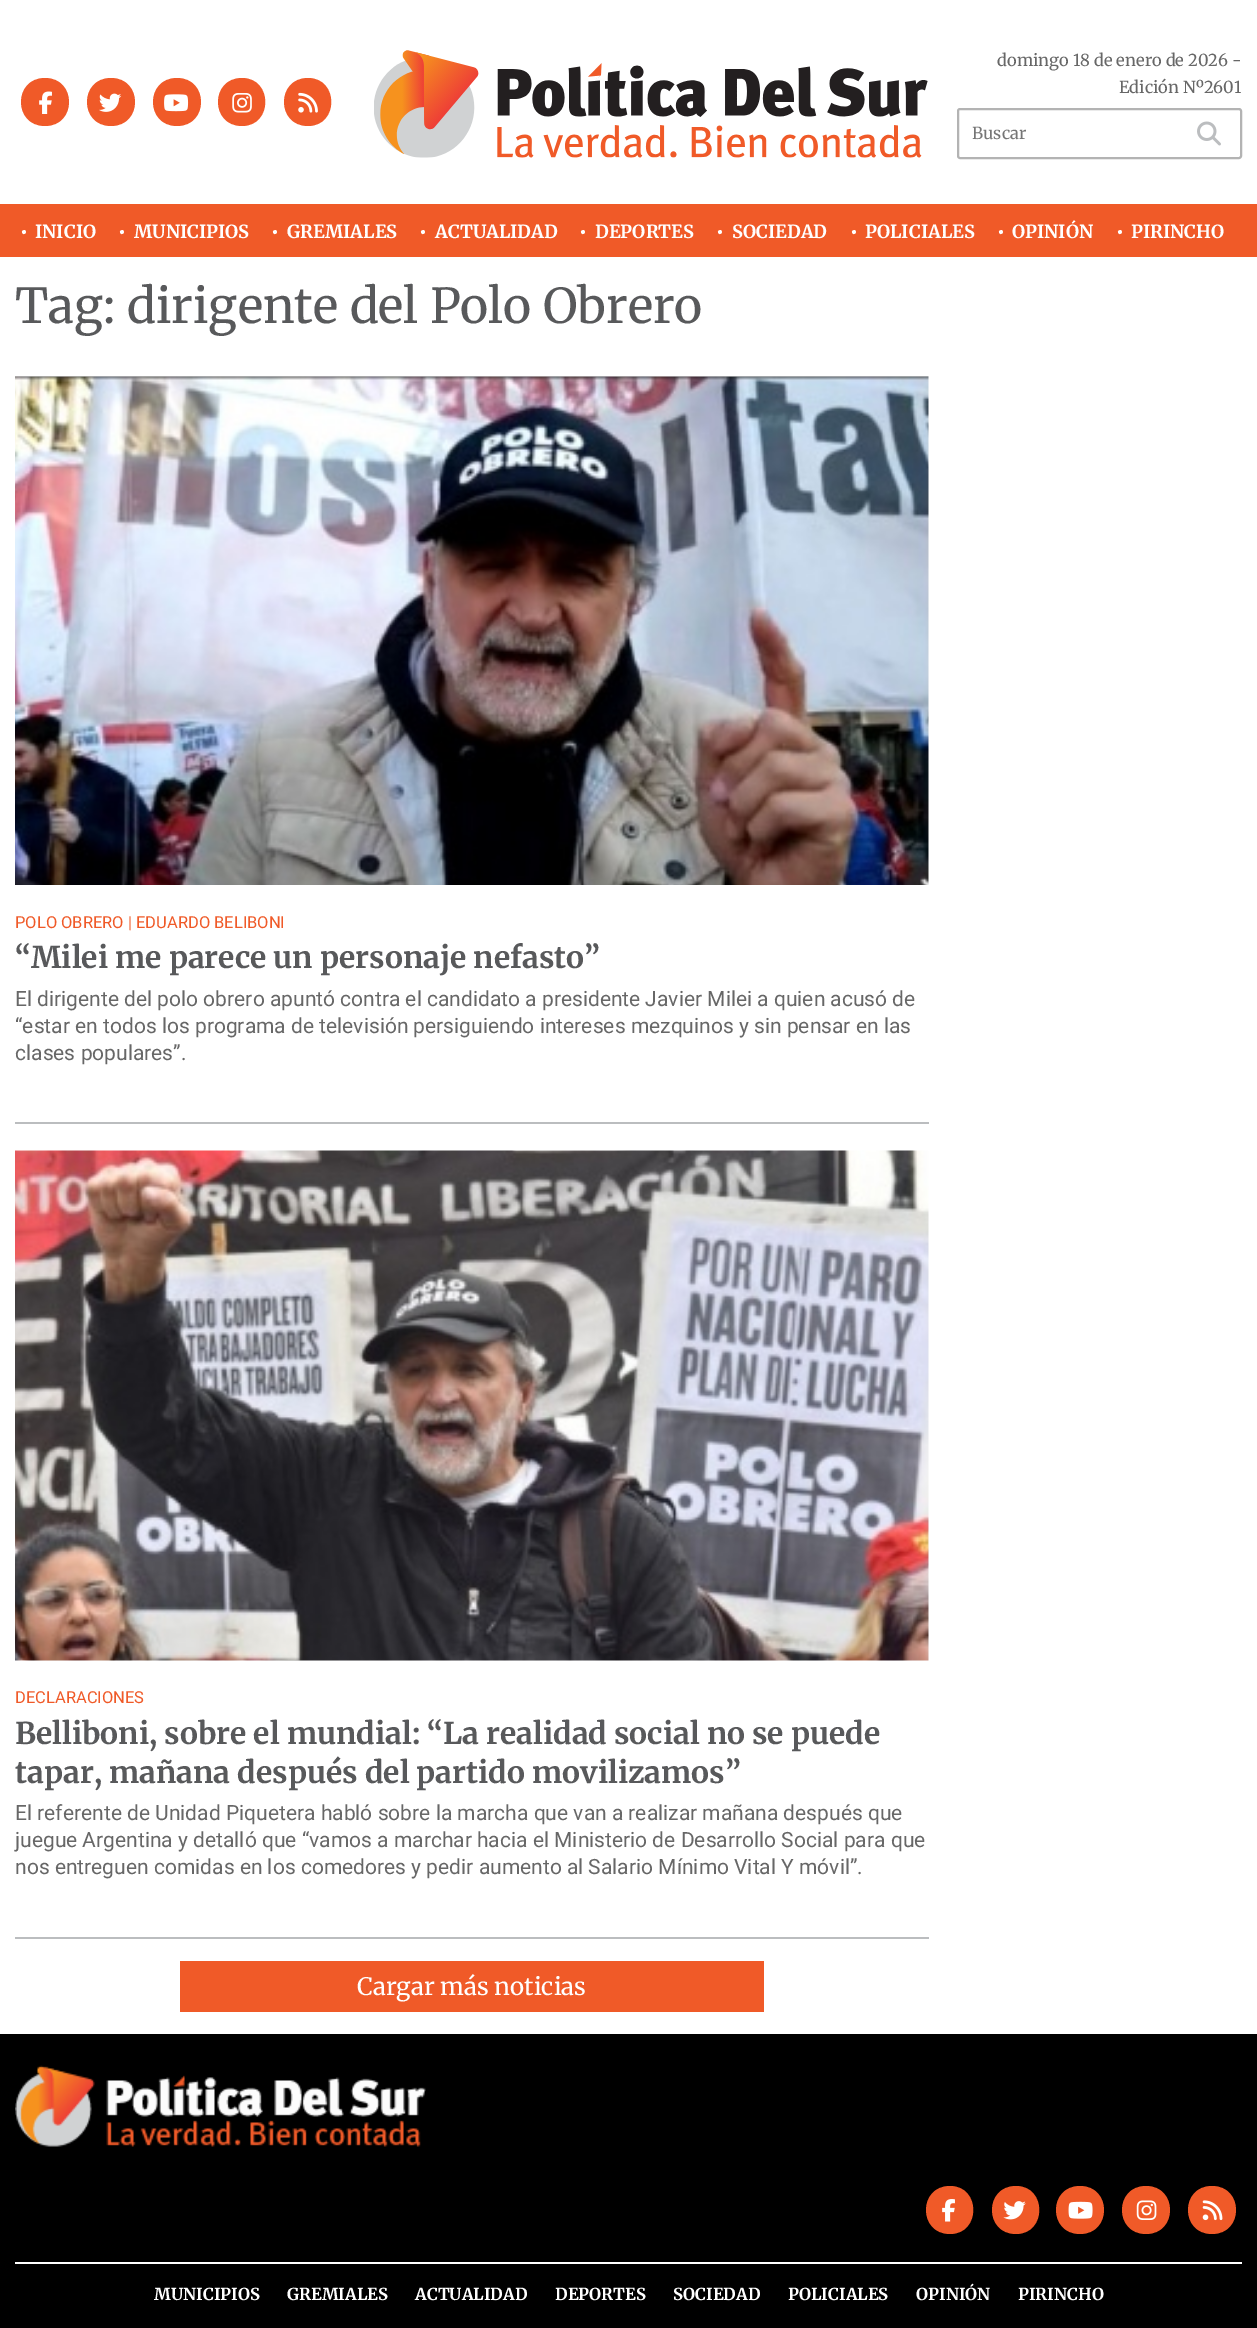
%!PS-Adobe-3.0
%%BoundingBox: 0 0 1257 2328
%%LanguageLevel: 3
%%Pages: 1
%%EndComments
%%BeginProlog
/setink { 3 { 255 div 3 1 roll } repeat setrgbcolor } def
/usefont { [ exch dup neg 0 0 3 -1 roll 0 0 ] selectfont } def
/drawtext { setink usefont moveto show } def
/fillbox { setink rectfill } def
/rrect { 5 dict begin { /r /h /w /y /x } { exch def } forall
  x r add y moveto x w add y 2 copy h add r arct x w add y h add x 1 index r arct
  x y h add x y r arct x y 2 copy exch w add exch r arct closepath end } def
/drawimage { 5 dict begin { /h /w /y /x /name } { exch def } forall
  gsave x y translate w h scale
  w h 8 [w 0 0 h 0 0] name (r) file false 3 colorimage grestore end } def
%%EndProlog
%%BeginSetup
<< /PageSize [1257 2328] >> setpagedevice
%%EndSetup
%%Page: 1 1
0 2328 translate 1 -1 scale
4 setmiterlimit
0 0 1257 2328 255 255 255 fillbox
240 90 40 setink
45 126 moveto 77 126 77 78 45 78 curveto 13 78 13 126 45 126 curveto closepath fill
(assets/img1.rgb) 39 91 13 23 drawimage
111 126 moveto 143 126 143 78 111 78 curveto 79 78 79 126 111 126 curveto closepath fill
(assets/img2.rgb) 99 93 23 19 drawimage
177 126 moveto 209 126 209 78 177 78 curveto 145 78 145 126 177 126 curveto closepath fill
(assets/img3.rgb) 164 94 25 18 drawimage
242 126 moveto 273 126 273 78 242 78 curveto 210 78 210 126 242 126 curveto closepath fill
(assets/img4.rgb) 232 93 20 20 drawimage
308 126 moveto 339 126 339 78 308 78 curveto 276 78 276 126 308 126 curveto closepath fill
(assets/img5.rgb) 298 92 20 21 drawimage
(assets/img6.rgb) 374 50 554 108 drawimage
(domingo 18 de enero de 2026 -) 997 66 /Merriweather-Regular 16.5 103 103 103 drawtext
(Edición Nº2601) 1119 93 /Merriweather-Regular 16.5 103 103 103 drawtext
179 179 179 setink
2 setlinewidth
958 109 283 49 2 rrect stroke
(Buscar) 972 139 /Merriweather-Regular 16.5 117 117 117 drawtext
(assets/img7.rgb) 1197 121 24 25 drawimage
0 204 1257 53 240 90 40 fillbox
(•) 20 238 /Merriweather-Bold 18 255 255 255 drawtext
(INICIO) 35 238 /Merriweather-Bold 18 255 255 255 drawtext
(•) 118 238 /Merriweather-Bold 18 255 255 255 drawtext
(MUNICIPIOS) 134 238 /Merriweather-Bold 18 255 255 255 drawtext
(•) 271 238 /Merriweather-Bold 18 255 255 255 drawtext
(GREMIALES) 287 238 /Merriweather-Bold 18 255 255 255 drawtext
(•) 419 238 /Merriweather-Bold 18 255 255 255 drawtext
(ACTUALIDAD) 435 238 /Merriweather-Bold 18 255 255 255 drawtext
(•) 579 238 /Merriweather-Bold 18 255 255 255 drawtext
(DEPORTES) 595 238 /Merriweather-Bold 18 255 255 255 drawtext
(•) 716 238 /Merriweather-Bold 18 255 255 255 drawtext
(SOCIEDAD) 732 238 /Merriweather-Bold 18 255 255 255 drawtext
(•) 850 238 /Merriweather-Bold 18 255 255 255 drawtext
(POLICIALES) 865 238 /Merriweather-Bold 18 255 255 255 drawtext
(•) 997 238 /Merriweather-Bold 18 255 255 255 drawtext
(OPINIÓN) 1012 238 /Merriweather-Bold 18 255 255 255 drawtext
(•) 1116 238 /Merriweather-Bold 18 255 255 255 drawtext
(PIRINCHO) 1131 238 /Merriweather-Bold 18 255 255 255 drawtext
(Tag: dirigente del Polo Obrero) 15 323 /Merriweather-Regular 48 88 89 91 drawtext
15 1122 914 2 187 189 191 fillbox
(assets/img8.rgb) 15 376 914 509 drawimage
(POLO OBRERO | EDUARDO BELIBONI) 15 928 /Roboto-Regular 16.5 240 90 40 drawtext
(“Milei me parece un personaje nefasto”) 15 968 /Merriweather-Bold 30 88 89 91 drawtext
(El dirigente del polo obrero apuntó contra el candidato a presidente Javier Milei a quien acusó de) 15 1006 /Roboto-Regular 21 103 103 103 drawtext
(“estar en todos los programa de televisión persiguiendo intereses mezquinos y sin pensar en las) 15 1033 /Roboto-Regular 21 103 103 103 drawtext
(clases populares”.) 15 1060 /Roboto-Regular 21 103 103 103 drawtext
15 1937 914 2 187 189 191 fillbox
(assets/img9.rgb) 15 1150 914 511 drawimage
(DECLARACIONES) 15 1703 /Roboto-Regular 16.5 240 90 40 drawtext
(Belliboni, sobre el mundial: “La realidad social no se puede) 15 1744 /Merriweather-Bold 30 88 89 91 drawtext
(tapar, mañana después del partido movilizamos”) 15 1783 /Merriweather-Bold 30 88 89 91 drawtext
(El referente de Unidad Piquetera habló sobre la marcha que van a realizar mañana después que) 15 1820 /Roboto-Regular 21 103 103 103 drawtext
(juegue Argentina y detalló que “vamos a marchar hacia el Ministerio de Desarrollo Social para que) 15 1847 /Roboto-Regular 21 103 103 103 drawtext
(nos entreguen comidas en los comedores y pedir aumento al Salario Mínimo Vital Y móvil”.) 15 1874 /Roboto-Regular 21 103 103 103 drawtext
180 1961 584 51 240 90 40 fillbox
(Cargar más noticias) 357 1995 /Merriweather-Regular 24 255 255 255 drawtext
0 2034 1257 294 0 0 0 fillbox
(assets/img10.rgb) 15 2065 411 82 drawimage
240 90 40 setink
950 2234 moveto 981 2234 981 2186 950 2186 curveto 918 2186 918 2234 950 2234 curveto closepath fill
(assets/img11.rgb) 942 2199 13 23 drawimage
1016 2234 moveto 1047 2234 1047 2186 1016 2186 curveto 984 2186 984 2234 1016 2234 curveto closepath fill
(assets/img12.rgb) 1003 2201 23 19 drawimage
1080 2234 moveto 1112 2234 1112 2186 1080 2186 curveto 1048 2186 1048 2234 1080 2234 curveto closepath fill
(assets/img13.rgb) 1068 2201 25 18 drawimage
1146 2234 moveto 1178 2234 1178 2186 1146 2186 curveto 1114 2186 1114 2234 1146 2234 curveto closepath fill
(assets/img14.rgb) 1136 2200 21 20 drawimage
1212 2234 moveto 1244 2234 1244 2186 1212 2186 curveto 1180 2186 1180 2234 1212 2234 curveto closepath fill
(assets/img15.rgb) 1202 2200 21 21 drawimage
15 2262 1227 2 255 255 255 fillbox
(MUNICIPIOS) 154 2300 /Merriweather-Bold 16.5 255 255 255 drawtext
(GREMIALES) 287 2300 /Merriweather-Bold 16.5 255 255 255 drawtext
(ACTUALIDAD) 415 2300 /Merriweather-Bold 16.5 255 255 255 drawtext
(DEPORTES) 555 2300 /Merriweather-Bold 16.5 255 255 255 drawtext
(SOCIEDAD) 673 2300 /Merriweather-Bold 16.5 255 255 255 drawtext
(POLICIALES) 788 2300 /Merriweather-Bold 16.5 255 255 255 drawtext
(OPINIÓN) 916 2300 /Merriweather-Bold 16.5 255 255 255 drawtext
(PIRINCHO) 1018 2300 /Merriweather-Bold 16.5 255 255 255 drawtext
showpage
%%EOF
